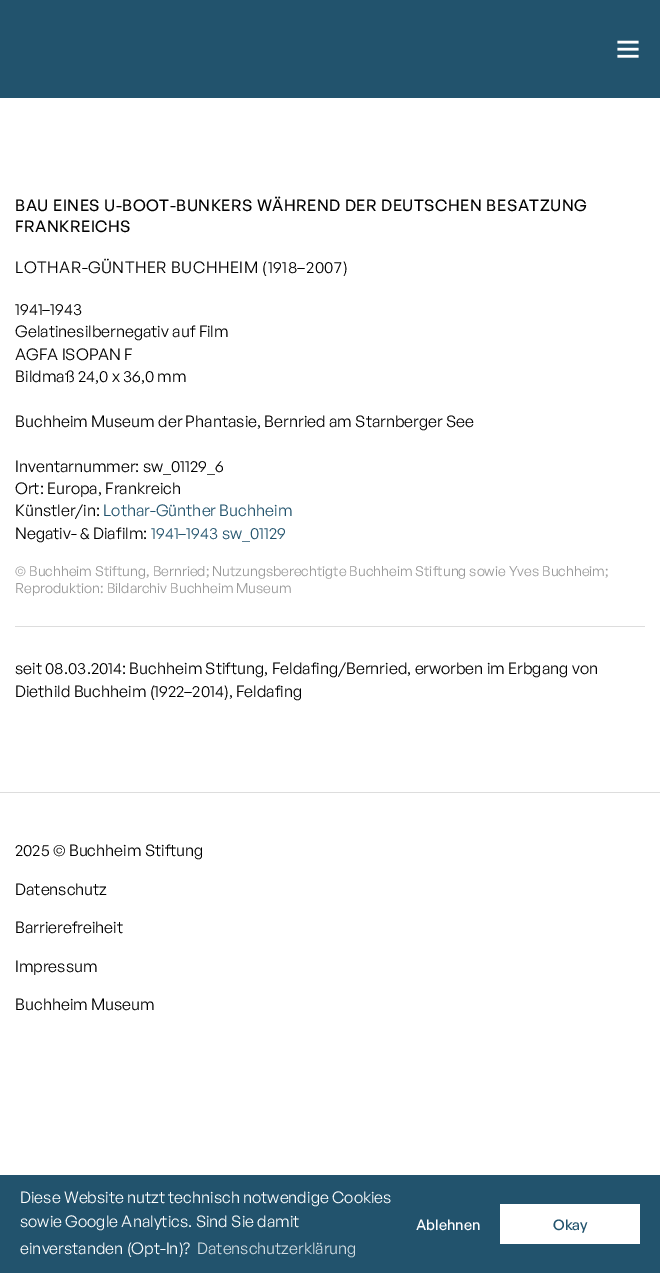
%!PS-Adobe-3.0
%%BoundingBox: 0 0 660 1273
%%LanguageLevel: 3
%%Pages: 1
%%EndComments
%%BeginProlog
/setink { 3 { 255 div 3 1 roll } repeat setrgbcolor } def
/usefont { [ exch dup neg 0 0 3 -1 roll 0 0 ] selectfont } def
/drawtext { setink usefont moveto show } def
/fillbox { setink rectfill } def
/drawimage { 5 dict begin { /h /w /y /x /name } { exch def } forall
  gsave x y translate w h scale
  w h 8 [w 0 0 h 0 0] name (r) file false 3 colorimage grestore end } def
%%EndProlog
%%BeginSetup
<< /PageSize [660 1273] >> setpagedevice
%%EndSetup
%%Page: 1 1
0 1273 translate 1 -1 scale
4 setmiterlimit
0 0 660 1273 255 255 255 fillbox
0 0 660 98 34 83 109 fillbox
(assets/img1.rgb) 617 40 22 18 drawimage
/GeneralSans-Medium 16 usefont
0 0 0 setink
15 211 moveto 0.5 0 (BAU EINES U-BOOT-BUNKERS WÄHREND DER DEUTSCHEN BESATZUNG) ashow
15 232 moveto 0.5 0 (FRANKREICHS) ashow
/GeneralSans-Regular 16 usefont
15 273 moveto 0.5 0 (LOTHAR-GÜNTHER BUCHHEIM \(1918–2007\)) ashow
(1941–1943) 15 315 /GeneralSans-Regular 16 0 0 0 drawtext
(Gelatinesilbernegativ auf Film) 15 337 /GeneralSans-Regular 16 0 0 0 drawtext
(AGFA ISOPAN F) 15 360 /GeneralSans-Regular 16 0 0 0 drawtext
(Bildmaß 24,0 x 36,0 mm) 15 382 /GeneralSans-Regular 16 0 0 0 drawtext
(Buchheim Museum der Phantasie, Bernried am Starnberger See) 15 427 /GeneralSans-Regular 16 0 0 0 drawtext
(Inventarnummer: sw_01129_6) 15 472 /GeneralSans-Regular 16 0 0 0 drawtext
(Ort: Europa, Frankreich) 15 494 /GeneralSans-Regular 16 0 0 0 drawtext
(Künstler/in:) 15 516 /GeneralSans-Regular 16 0 0 0 drawtext
(Lothar-Günther Buchheim) 103 516 /GeneralSans-Regular 16 34 83 109 drawtext
(Negativ- & Diafilm:) 15 539 /GeneralSans-Regular 16 0 0 0 drawtext
(1941–1943 sw_01129) 151 539 /GeneralSans-Regular 16 34 83 109 drawtext
(© Buchheim Stiftung, Bernried; Nutzungsberechtigte Buchheim Stiftung sowie Yves Buchheim;) 15 576 /GeneralSans-Regular 13.9 153 153 153 drawtext
(Reproduktion: Bildarchiv Buchheim Museum) 15 593 /GeneralSans-Regular 13.9 153 153 153 drawtext
15 626 630 1 221 221 221 fillbox
(seit 08.03.2014: Buchheim Stiftung, Feldafing/Bernried, erworben im Erbgang von) 15 674 /GeneralSans-Regular 16 0 0 0 drawtext
(Diethild Buchheim \(1922–2014\), Feldafing) 15 697 /GeneralSans-Regular 16 0 0 0 drawtext
0 792 660 1 221 221 221 fillbox
(2025 © Buchheim Stiftung) 15 856 /GeneralSans-Regular 16 0 0 0 drawtext
(Datenschutz) 15 895 /GeneralSans-Regular 16 0 0 0 drawtext
(Barrierefreiheit) 15 933 /GeneralSans-Regular 16 0 0 0 drawtext
(Impressum) 15 972 /GeneralSans-Regular 16 0 0 0 drawtext
(Buchheim Museum) 15 1010 /GeneralSans-Regular 16 0 0 0 drawtext
0 1175 660 98 34 83 109 fillbox
(Diese Website nutzt technisch notwendige Cookies) 20 1203 /GeneralSans-Regular 16 255 255 255 drawtext
(sowie Google Analytics. Sind Sie damit) 20 1227 /GeneralSans-Regular 16 255 255 255 drawtext
(einverstanden \(Opt-In\)?) 20 1254 /GeneralSans-Regular 16 255 255 255 drawtext
(Datenschutzerklärung) 197 1254 /GeneralSans-Regular 16 211 221 226 drawtext
(Ablehnen) 416 1230 /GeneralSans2-Medium 14.5 255 255 255 drawtext
500 1204 140 40 255 255 255 fillbox
(Okay) 553 1230 /GeneralSans2-Medium 14.5 34 83 109 drawtext
showpage
%%EOF
